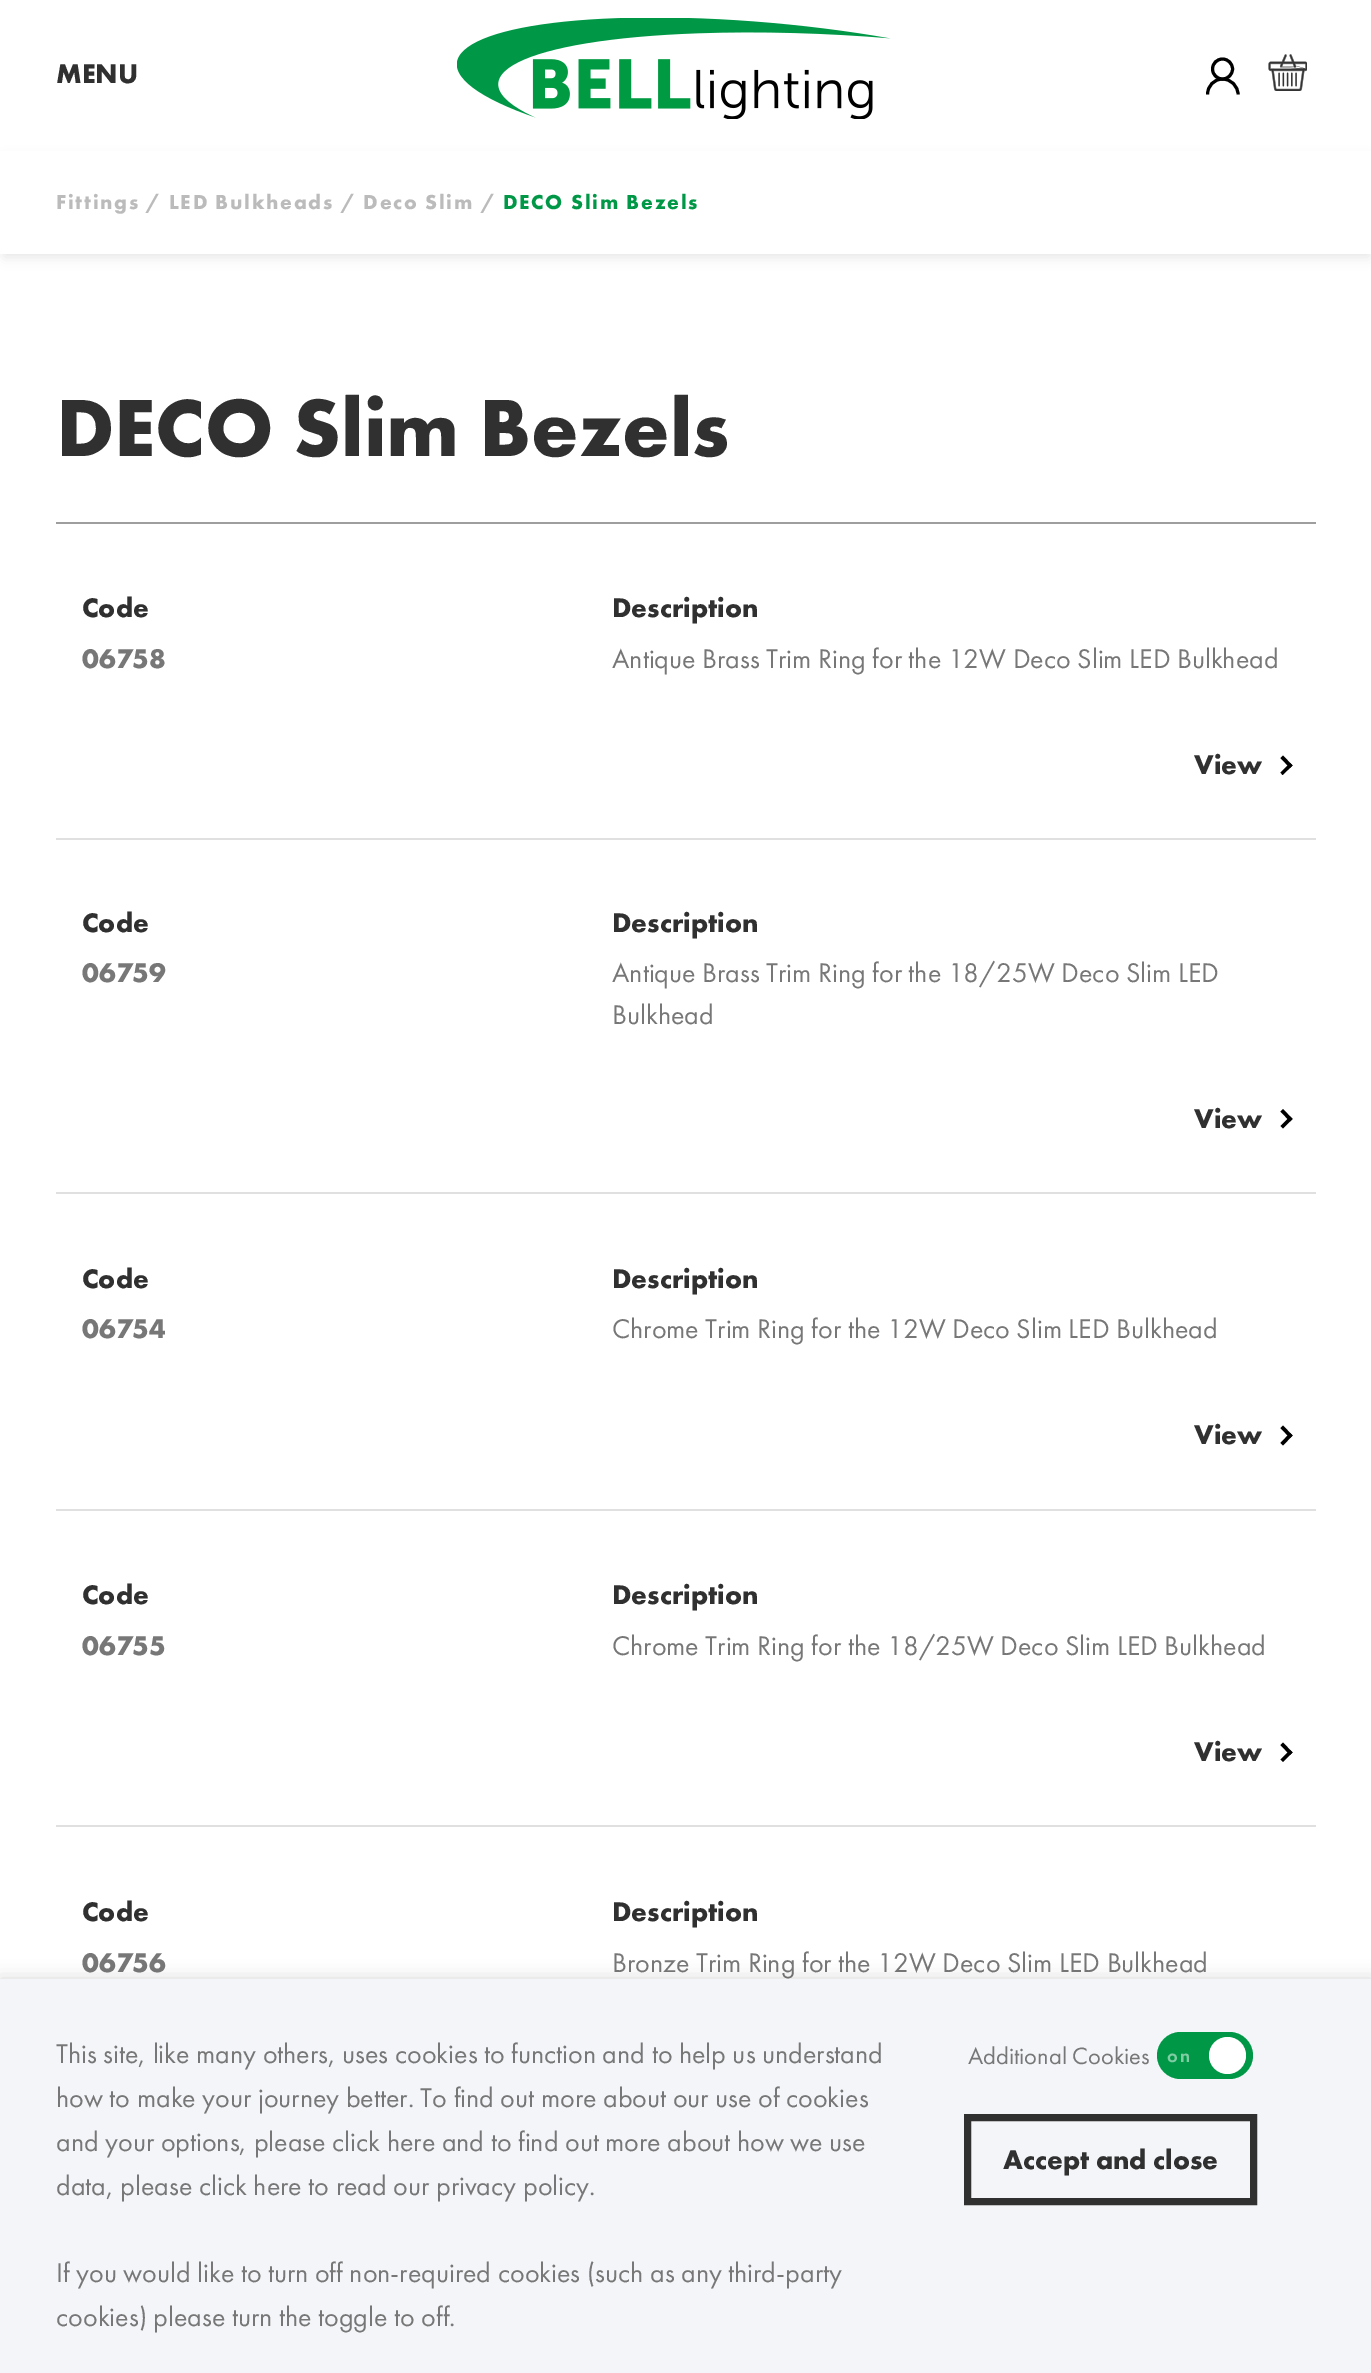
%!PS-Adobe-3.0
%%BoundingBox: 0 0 1371 2373
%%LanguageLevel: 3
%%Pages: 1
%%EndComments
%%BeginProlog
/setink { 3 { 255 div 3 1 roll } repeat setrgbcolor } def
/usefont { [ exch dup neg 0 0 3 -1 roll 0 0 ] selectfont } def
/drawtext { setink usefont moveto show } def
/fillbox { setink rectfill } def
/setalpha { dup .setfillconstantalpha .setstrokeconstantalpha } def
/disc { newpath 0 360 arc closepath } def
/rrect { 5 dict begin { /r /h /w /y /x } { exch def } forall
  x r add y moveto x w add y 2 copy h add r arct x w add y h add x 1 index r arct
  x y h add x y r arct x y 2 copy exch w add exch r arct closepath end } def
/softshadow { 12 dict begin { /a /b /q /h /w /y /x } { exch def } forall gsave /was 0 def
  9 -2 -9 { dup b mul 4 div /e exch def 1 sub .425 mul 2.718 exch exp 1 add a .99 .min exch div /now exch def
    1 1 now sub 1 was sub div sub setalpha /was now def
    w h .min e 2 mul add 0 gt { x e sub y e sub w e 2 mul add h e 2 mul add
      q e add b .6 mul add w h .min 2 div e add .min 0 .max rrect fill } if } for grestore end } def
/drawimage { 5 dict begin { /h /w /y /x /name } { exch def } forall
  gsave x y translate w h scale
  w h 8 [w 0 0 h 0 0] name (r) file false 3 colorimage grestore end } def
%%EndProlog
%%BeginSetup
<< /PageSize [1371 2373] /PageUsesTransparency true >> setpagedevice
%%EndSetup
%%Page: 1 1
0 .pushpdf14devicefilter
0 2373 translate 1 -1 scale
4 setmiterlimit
0 0 1371 2373 255 255 255 fillbox
(MENU) 56 83 /FuturaPT-Bold 28 48 48 48 drawtext
(assets/img1.rgb) 457 18 434 101 drawimage
0 0 0 setink
3 setlinewidth
1222.5 69 10 disc stroke
1238 94.5 moveto 1238 86 1231 79 1222.5 79 curveto 1214 79 1207.5 86 1207.5 94.5 curveto stroke
(assets/img2.rgb) 1268 54 39 37 drawimage
4 159 1365 98 0 6 0.1 softshadow
0 151 1371 103 255 255 255 fillbox
/FuturaPT-Bold 21 usefont
187 187 187 setink
56 209 moveto 1.75 0 (Fittings / LED Bulkheads / Deco Slim /) ashow
0 152 71 setink
503 209 moveto 1.75 0 (DECO Slim Bezels) ashow
(DECO Slim Bezels) 56 456 /FuturaPT-Bold 84 48 48 48 drawtext
56 522 1260 2 158 158 158 fillbox
56 838 1260 2 224 224 224 fillbox
(Code) 82 617 /FuturaPT-Bold 28 48 48 48 drawtext
(06758) 82 668 /FuturaPT-Bold 28 119 119 119 drawtext
(Description) 612 617 /FuturaPT-Bold 28 48 48 48 drawtext
(Antique Brass Trim Ring for the 12W Deco Slim LED Bulkhead) 612 668 /FuturaPT-Regular 28 119 119 119 drawtext
(View) 1194 774 /FuturaPT-Bold 28 48 48 48 drawtext
0 0 0 setink
1280.5 758 moveto 1283 755.5 lineto 1292.5 765.5 lineto 1290 768 lineto closepath fill
1280.5 772.5 moveto 1290 763 lineto 1292.5 765.5 lineto 1282.5 775 lineto closepath fill
56 1192 1260 2 224 224 224 fillbox
(Code) 82 932 /FuturaPT-Bold 28 48 48 48 drawtext
(06759) 82 982 /FuturaPT-Bold 28 119 119 119 drawtext
(Description) 612 932 /FuturaPT-Bold 28 48 48 48 drawtext
(Antique Brass Trim Ring for the 18/25W Deco Slim LED) 612 982 /FuturaPT-Regular 28 119 119 119 drawtext
(Bulkhead) 612 1024 /FuturaPT-Regular 28 119 119 119 drawtext
(View) 1194 1128 /FuturaPT-Bold 28 48 48 48 drawtext
0 0 0 setink
1280.5 1111.5 moveto 1283 1109 lineto 1292.5 1119 lineto 1290 1121.5 lineto closepath fill
1280.5 1126 moveto 1290 1116.5 lineto 1292.5 1119 lineto 1283 1128.5 lineto closepath fill
56 1509 1260 2 224 224 224 fillbox
(Code) 82 1288 /FuturaPT-Bold 28 48 48 48 drawtext
(06754) 82 1338 /FuturaPT-Bold 28 119 119 119 drawtext
(Description) 612 1288 /FuturaPT-Bold 28 48 48 48 drawtext
(Chrome Trim Ring for the 12W Deco Slim LED Bulkhead) 612 1338 /FuturaPT-Regular 28 119 119 119 drawtext
(View) 1194 1444 /FuturaPT-Bold 28 48 48 48 drawtext
0 0 0 setink
1280.5 1428 moveto 1283 1425.5 lineto 1292.5 1435.5 lineto 1290 1438 lineto closepath fill
1280.5 1443 moveto 1290 1433 lineto 1292.5 1435.5 lineto 1283 1445.5 lineto closepath fill
56 1825 1260 2 224 224 224 fillbox
(Code) 82 1604 /FuturaPT-Bold 28 48 48 48 drawtext
(06755) 82 1655 /FuturaPT-Bold 28 119 119 119 drawtext
(Description) 612 1604 /FuturaPT-Bold 28 48 48 48 drawtext
(Chrome Trim Ring for the 18/25W Deco Slim LED Bulkhead) 612 1655 /FuturaPT-Regular 28 119 119 119 drawtext
(View) 1194 1761 /FuturaPT-Bold 28 48 48 48 drawtext
0 0 0 setink
1280.5 1745 moveto 1283 1742.5 lineto 1292.5 1752.5 lineto 1290 1755 lineto closepath fill
1280.5 1759.5 moveto 1290 1750 lineto 1292.5 1752.5 lineto 1283 1762 lineto closepath fill
(Code) 82 1921 /FuturaPT-Bold 28 48 48 48 drawtext
(06756) 82 1972 /FuturaPT-Bold 28 119 119 119 drawtext
(Description) 612 1921 /FuturaPT-Bold 28 48 48 48 drawtext
(Bronze Trim Ring for the 12W Deco Slim LED Bulkhead) 612 1972 /FuturaPT-Regular 28 119 119 119 drawtext
0 0 0 setink
0 1979 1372 394 0 9 0.15 softshadow
0 1979 1371 394 244 245 249 fillbox
(This site, like many others, uses cookies to function and to help us understand) 56 2063 /FuturaPT-Regular 28 119 119 119 drawtext
(how to make your journey better. To find out more about our use of cookies) 56 2107 /FuturaPT-Regular 28 119 119 119 drawtext
(and your options, please click here and to find out more about how we use) 56 2151 /FuturaPT-Regular 28 119 119 119 drawtext
(data, please click here to read our privacy policy.) 56 2195 /FuturaPT-Regular 28 119 119 119 drawtext
(If you would like to turn off non-required cookies \(such as any third-party) 56 2282 /FuturaPT-Regular 28 119 119 119 drawtext
(cookies\) please turn the toggle to off.) 56 2326 /FuturaPT-Regular 28 119 119 119 drawtext
(Additional Cookies) 968 2064 /FuturaPT-Regular 24.5 119 119 119 drawtext
0 152 71 setink
1157 2032 96 47 23.5 rrect fill
255 255 255 setink
1227.5 2055.5 18.5 disc fill
/FuturaPT-Medium 19 usefont
128 204 163 setink
1167 2062 moveto 1.75 0 (on) ashow
48 48 48 setink
7 setlinewidth
967.5 2117.5 286 84 rectstroke
(Accept and close) 1003 2169 /FuturaPT-Bold 28 48 48 48 drawtext
.poppdf14devicefilter showpage
%%EOF
